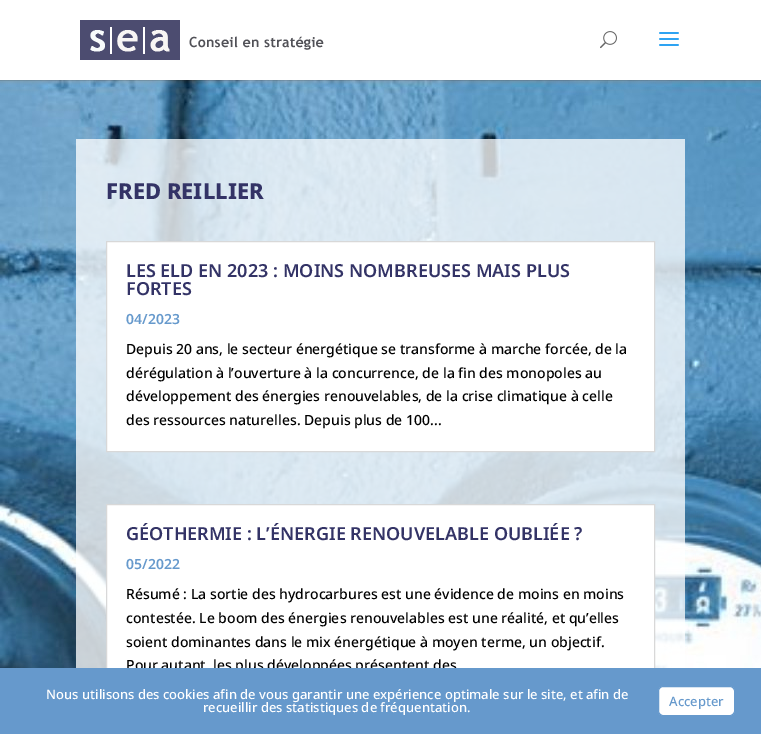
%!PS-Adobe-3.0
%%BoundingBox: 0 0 761 734
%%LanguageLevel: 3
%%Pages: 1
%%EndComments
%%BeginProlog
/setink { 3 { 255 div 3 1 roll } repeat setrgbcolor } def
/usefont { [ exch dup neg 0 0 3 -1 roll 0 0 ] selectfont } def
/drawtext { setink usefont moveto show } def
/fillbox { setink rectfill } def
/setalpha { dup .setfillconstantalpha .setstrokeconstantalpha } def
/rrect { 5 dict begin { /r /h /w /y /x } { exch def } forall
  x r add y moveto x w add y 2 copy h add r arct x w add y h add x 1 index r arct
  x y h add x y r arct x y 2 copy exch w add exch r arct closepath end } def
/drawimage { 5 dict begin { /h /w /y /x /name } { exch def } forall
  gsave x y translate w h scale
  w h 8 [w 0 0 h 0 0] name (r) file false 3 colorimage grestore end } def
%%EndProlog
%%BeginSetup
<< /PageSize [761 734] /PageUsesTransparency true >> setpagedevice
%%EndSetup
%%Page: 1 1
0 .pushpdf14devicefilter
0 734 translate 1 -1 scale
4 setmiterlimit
0 0 761 734 255 255 255 fillbox
(assets/img4.rgb) 0 80 761 588 drawimage
0.1 setalpha
0 80 761 1 0 0 0 fillbox
1 setalpha
(assets/img1.rgb) 80 20 244 40 drawimage
(assets/img2.rgb) 600 31 17 18 drawimage
(assets/img3.rgb) 659 32 20 14 drawimage
0.76 setalpha
76 139 609 529 255 255 255 fillbox
1 setalpha
(FRED REILLIER) 106 199 /NotoSans-ExtraBold 22 51 51 102 drawtext
255 255 255 setink
106.5 241.5 moveto 654.5 241.5 lineto 654.5 451.5 lineto 106.5 451.5 lineto closepath gsave fill grestore
216 216 216 setink
stroke
(LES ELD EN 2023 : MOINS NOMBREUSES MAIS PLUS) 126 277 /NotoSans-SemiBold 18 51 51 102 drawtext
(FORTES) 126 295 /NotoSans-SemiBold 18 51 51 102 drawtext
(04/2023) 126 324 /NotoSans-SemiBold 14 102 153 204 drawtext
(Depuis 20 ans, le secteur énergétique se transforme à marche forcée, de la) 126 354 /NotoSans-Medium 14 0 0 0 drawtext
(dérégulation à l’ouverture à la concurrence, de la fin des monopoles au) 126 378 /NotoSans-Medium 14 0 0 0 drawtext
(développement des énergies renouvelables, de la crise climatique à celle) 126 401 /NotoSans-Medium 14 0 0 0 drawtext
(des ressources naturelles. Depuis plus de 100...) 126 425 /NotoSans-Medium 14 0 0 0 drawtext
107 505 547 163 255 255 255 fillbox
216 216 216 setink
106.5 504.5 548 192 rectstroke
(GÉOTHERMIE : L’ÉNERGIE RENOUVELABLE OUBLIÉE ?) 126 540 /NotoSans-SemiBold 18 51 51 102 drawtext
(05/2022) 126 569 /NotoSans-SemiBold 14 102 153 204 drawtext
(Résumé : La sortie des hydrocarbures est une évidence de moins en moins) 126 599 /NotoSans-Medium 14 0 0 0 drawtext
(contestée. Le boom des énergies renouvelables est une réalité, et qu’elles) 126 623 /NotoSans-Medium 14 0 0 0 drawtext
(soient dominantes dans le mix énergétique à moyen terme, un objectif.) 126 647 /NotoSans-Medium 14 0 0 0 drawtext
(Pour autant, les plus développées présentent des) 126 670 /NotoSans-Medium 14 0 0 0 drawtext
0 668 761 66 102 153 204 fillbox
(Nous utilisons des cookies afin de vous garantir une expérience optimale sur le site, et afin de) 46 699 /NotoSans-Medium 13 255 255 255 drawtext
(recueillir des statistiques de fréquentation.) 203 712 /NotoSans-Medium 13 255 255 255 drawtext
658.5 686.5 76 29 4.5 rrect gsave fill grestore
102 153 204 setink
stroke
(Accepter) 669 706 /NotoSans-Medium 13 102 153 204 drawtext
.poppdf14devicefilter showpage
%%EOF
